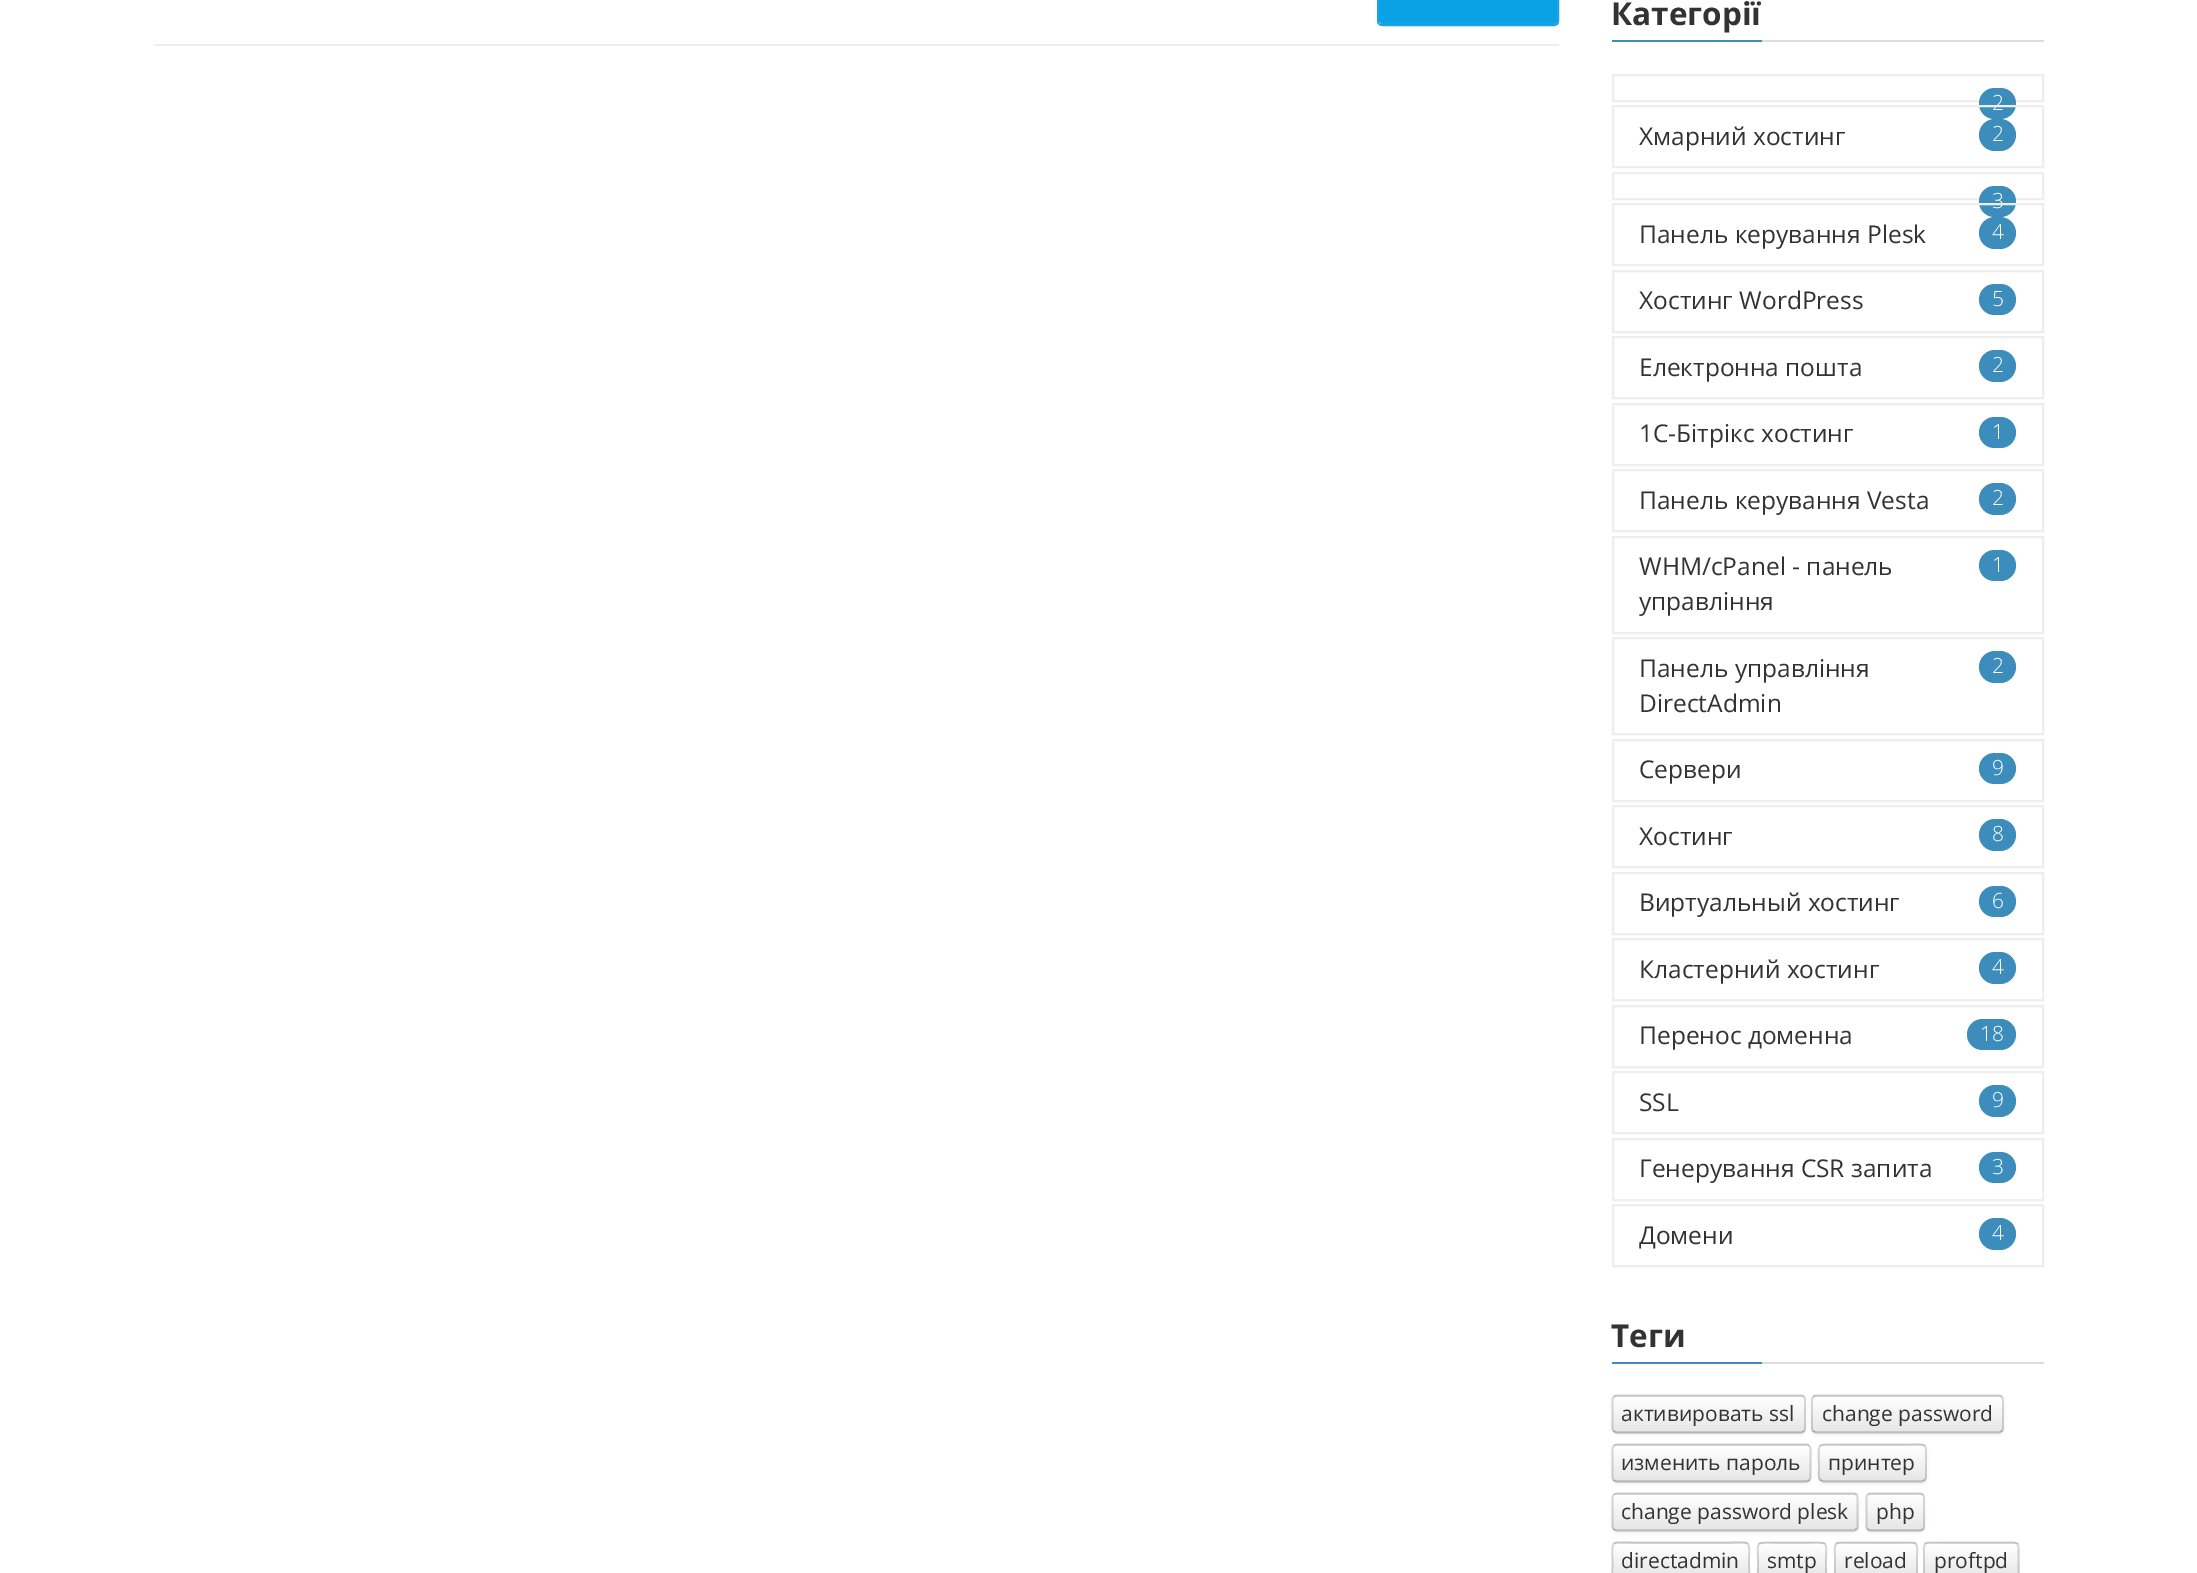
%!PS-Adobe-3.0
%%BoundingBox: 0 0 2197 1573
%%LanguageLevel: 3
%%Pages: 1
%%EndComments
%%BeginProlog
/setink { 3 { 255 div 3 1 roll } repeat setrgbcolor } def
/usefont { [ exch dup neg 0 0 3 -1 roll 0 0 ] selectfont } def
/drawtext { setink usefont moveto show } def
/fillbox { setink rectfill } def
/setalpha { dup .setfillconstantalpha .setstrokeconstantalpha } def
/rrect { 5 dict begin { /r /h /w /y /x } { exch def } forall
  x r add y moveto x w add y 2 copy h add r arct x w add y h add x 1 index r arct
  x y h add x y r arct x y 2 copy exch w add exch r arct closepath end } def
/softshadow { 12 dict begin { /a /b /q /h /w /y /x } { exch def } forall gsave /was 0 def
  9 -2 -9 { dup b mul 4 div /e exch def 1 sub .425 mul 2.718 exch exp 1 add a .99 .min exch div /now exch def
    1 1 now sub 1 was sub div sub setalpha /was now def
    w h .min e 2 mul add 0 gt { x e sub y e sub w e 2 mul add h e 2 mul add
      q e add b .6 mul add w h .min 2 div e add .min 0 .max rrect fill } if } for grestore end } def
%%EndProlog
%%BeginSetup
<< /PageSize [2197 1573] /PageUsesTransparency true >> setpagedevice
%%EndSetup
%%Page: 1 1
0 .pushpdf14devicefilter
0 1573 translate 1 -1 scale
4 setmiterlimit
0 0 2197 1573 255 255 255 fillbox
154 44 1405 2 238 238 238 fillbox
10 162 228 setink
1382 -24 moveto 1554 -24 lineto 1556 -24 1558 -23 1558 -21 curveto 1558 21 lineto 1558 22 1556 23 1554 23 curveto 1382 23 lineto 1381 23 1379 22 1379 21 curveto 1379 -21 lineto 1379 -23 1381 -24 1382 -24 curveto closepath fill
26 162 228 setink
2 setlinewidth
1378 -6 180 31 4 rrect stroke
1381 23 177 2 26 162 228 fillbox
1762 40 282 2 221 221 221 fillbox
(Категорії) 1611 25 /OpenSans-Bold 31.5 51 51 51 drawtext
1612 40 150 2 60 141 188 fillbox
238 238 238 setink
1613 75 430 26 rectstroke
60 141 188 setink
1979 88 37 31 15.5 rrect fill
(2) 1992 110 /OpenSans-Light 21 255 255 255 drawtext
238 238 238 setink
1613 106 430 61 rectstroke
(Хмарний хостинг) 1639 145 /OpenSans-Regular 24.5 51 51 51 drawtext
60 141 188 setink
1979 119 37 32 16 rrect fill
(2) 1992 141 /OpenSans-Light 21 255 255 255 drawtext
238 238 238 setink
1613 173 430 26 rectstroke
60 141 188 setink
1979 186 37 31 15.5 rrect fill
(3) 1992 208 /OpenSans-Light 21 255 255 255 drawtext
238 238 238 setink
1613 204 430 61 rectstroke
(Панель керування Plesk) 1639 243 /OpenSans-Regular 24.5 51 51 51 drawtext
60 141 188 setink
1979 217 37 32 16 rrect fill
(4) 1992 239 /OpenSans-Light 21 255 255 255 drawtext
238 238 238 setink
1613 271 430 61 rectstroke
(Хостинг WordPress) 1639 309 /OpenSans-Regular 24.5 51 51 51 drawtext
60 141 188 setink
1979 284 37 31 15.5 rrect fill
(5) 1992 306 /OpenSans-Light 21 255 255 255 drawtext
238 238 238 setink
1613 337 430 61 rectstroke
(Електронна пошта) 1639 376 /OpenSans-Regular 24.5 51 51 51 drawtext
60 141 188 setink
1979 350 37 32 16 rrect fill
(2) 1992 372 /OpenSans-Light 21 255 255 255 drawtext
238 238 238 setink
1613 404 430 61 rectstroke
(1C-Бітрікс хостинг) 1639 442 /OpenSans-Regular 24.5 51 51 51 drawtext
60 141 188 setink
1979 417 37 31 15.5 rrect fill
(1) 1992 439 /OpenSans-Light 21 255 255 255 drawtext
238 238 238 setink
1613 470 430 61 rectstroke
(Панель керування Vesta) 1639 509 /OpenSans-Regular 24.5 51 51 51 drawtext
60 141 188 setink
1979 483 37 32 16 rrect fill
(2) 1992 505 /OpenSans-Light 21 255 255 255 drawtext
238 238 238 setink
1613 537 430 96 rectstroke
(WHM/cPanel - панель) 1639 575 /OpenSans-Regular 24.5 51 51 51 drawtext
60 141 188 setink
1979 550 37 31 15.5 rrect fill
(1) 1992 572 /OpenSans-Light 21 255 255 255 drawtext
(управління) 1639 610 /OpenSans-Regular 24.5 51 51 51 drawtext
238 238 238 setink
1613 638 430 96 rectstroke
(Панель управління) 1639 677 /OpenSans-Regular 24.5 51 51 51 drawtext
60 141 188 setink
1979 651 37 32 16 rrect fill
(2) 1992 673 /OpenSans-Light 21 255 255 255 drawtext
(DirectAdmin) 1639 712 /OpenSans-Regular 24.5 51 51 51 drawtext
238 238 238 setink
1613 740 430 61 rectstroke
(Сервери) 1639 778 /OpenSans-Regular 24.5 51 51 51 drawtext
60 141 188 setink
1979 753 37 31 15.5 rrect fill
(9) 1992 775 /OpenSans-Light 21 255 255 255 drawtext
238 238 238 setink
1613 806 430 61 rectstroke
(Хостинг) 1639 845 /OpenSans-Regular 24.5 51 51 51 drawtext
60 141 188 setink
1979 819 37 32 16 rrect fill
(8) 1992 841 /OpenSans-Light 21 255 255 255 drawtext
238 238 238 setink
1613 873 430 61 rectstroke
(Виртуальный хостинг) 1639 911 /OpenSans-Regular 24.5 51 51 51 drawtext
60 141 188 setink
1979 886 37 31 15.5 rrect fill
(6) 1992 908 /OpenSans-Light 21 255 255 255 drawtext
238 238 238 setink
1613 939 430 61 rectstroke
(Кластерний хостинг) 1639 978 /OpenSans-Regular 24.5 51 51 51 drawtext
60 141 188 setink
1979 952 37 32 16 rrect fill
(4) 1992 974 /OpenSans-Light 21 255 255 255 drawtext
238 238 238 setink
1613 1006 430 61 rectstroke
(Перенос доменна) 1639 1044 /OpenSans-Regular 24.5 51 51 51 drawtext
60 141 188 setink
1967 1019 49 31 15.5 rrect fill
(18) 1980 1041 /OpenSans-Light 21 255 255 255 drawtext
238 238 238 setink
1613 1072 430 61 rectstroke
(SSL) 1639 1111 /OpenSans-Regular 24.5 51 51 51 drawtext
60 141 188 setink
1979 1085 37 32 16 rrect fill
(9) 1992 1107 /OpenSans-Light 21 255 255 255 drawtext
238 238 238 setink
1613 1139 430 61 rectstroke
(Генерування CSR запита) 1639 1177 /OpenSans-Regular 24.5 51 51 51 drawtext
60 141 188 setink
1979 1152 37 31 15.5 rrect fill
(3) 1992 1174 /OpenSans-Light 21 255 255 255 drawtext
238 238 238 setink
1613 1205 430 61 rectstroke
(Домени) 1639 1244 /OpenSans-Regular 24.5 51 51 51 drawtext
60 141 188 setink
1979 1218 37 32 16 rrect fill
(4) 1992 1240 /OpenSans-Light 21 255 255 255 drawtext
1762 1362 282 2 221 221 221 fillbox
(Теги) 1611 1347 /OpenSans-Bold 31.5 51 51 51 drawtext
1612 1362 150 2 60 141 188 fillbox
0 0 0 setink
1612 1397 194 38 5 2 0.05 softshadow
gsave
1612 1395 194 38 5 rrect clip newpath
gsave 1612 1395 moveto 1806 1395 lineto 1806 1397 lineto 1612 1397 lineto closepath clip newpath
<< /ShadingType 2 /ColorSpace /DeviceRGB /Coords [1709 1362 1709 1397] /Extend [true true] /Function << /FunctionType 2 /Domain [0 1] /C0 [1 1 1] /C1 [0.902 0.902 0.902] /N 1 >> >> shfill grestore
gsave 1612 1397 moveto 1806 1397 lineto 1806 1432 lineto 1612 1432 lineto closepath clip newpath
<< /ShadingType 2 /ColorSpace /DeviceRGB /Coords [1709 1397 1709 1432] /Extend [true true] /Function << /FunctionType 2 /Domain [0 1] /C0 [1 1 1] /C1 [0.902 0.902 0.902] /N 1 >> >> shfill grestore
grestore
0.25 setalpha
1.8 setlinewidth
1804 1431 moveto 1803 1432 1802 1432.5 1801 1432.5 curveto 1617 1432.5 lineto 1616 1432.5 1614.5 1432 1614 1431 curveto stroke
0.15 setalpha
1614 1431 moveto 1613 1430.5 1612.5 1429 1612.5 1428 curveto 1612.5 1400 lineto 1612.5 1399 1613 1397.5 1614 1397 curveto 1614.5 1396 1616 1395.5 1617 1395.5 curveto 1801 1395.5 lineto 1802 1395.5 1803 1396 1804 1397 curveto 1804.5 1397.5 1805 1399 1805 1400 curveto 1805 1428 lineto 1805 1429 1804.5 1430.5 1804 1431 curveto stroke
1 setalpha
(активировать ssl) 1621 1421 /OpenSans-Regular 21 51 51 51 drawtext
0 0 0 setink
1811 1397 193 38 5 2 0.05 softshadow
gsave
1811 1395 193 38 5 rrect clip newpath
gsave 1811 1395 moveto 2004 1395 lineto 2004 1397 lineto 1811 1397 lineto closepath clip newpath
<< /ShadingType 2 /ColorSpace /DeviceRGB /Coords [1908 1362 1908 1397] /Extend [true true] /Function << /FunctionType 2 /Domain [0 1] /C0 [1 1 1] /C1 [0.902 0.902 0.902] /N 1 >> >> shfill grestore
gsave 1811 1397 moveto 2004 1397 lineto 2004 1432 lineto 1811 1432 lineto closepath clip newpath
<< /ShadingType 2 /ColorSpace /DeviceRGB /Coords [1908 1397 1908 1432] /Extend [true true] /Function << /FunctionType 2 /Domain [0 1] /C0 [1 1 1] /C1 [0.902 0.902 0.902] /N 1 >> >> shfill grestore
gsave 1811 1432 moveto 2004 1432 lineto 2004 1433 lineto 1811 1433 lineto closepath clip newpath
<< /ShadingType 2 /ColorSpace /DeviceRGB /Coords [1908 1432 1908 1467] /Extend [true true] /Function << /FunctionType 2 /Domain [0 1] /C0 [1 1 1] /C1 [0.902 0.902 0.902] /N 1 >> >> shfill grestore
grestore
0.25 setalpha
2001.5 1431 moveto 2001 1432 1999.5 1432.5 1998.5 1432.5 curveto 1816.5 1432.5 lineto 1815.5 1432.5 1814 1432 1813.5 1431 curveto stroke
0.15 setalpha
1813.5 1431 moveto 1812.5 1430.5 1812 1429 1812 1428 curveto 1812 1400 lineto 1812 1399 1812.5 1397.5 1813.5 1397 curveto 1814 1396 1815.5 1395.5 1816.5 1395.5 curveto 1998.5 1395.5 lineto 1999.5 1395.5 2001 1396 2001.5 1397 curveto 2002.5 1397.5 2003 1399 2003 1400 curveto 2003 1428 lineto 2003 1429 2002.5 1430.5 2001.5 1431 curveto stroke
1 setalpha
(change password) 1822 1421 /OpenSans-Regular 21 51 51 51 drawtext
0 0 0 setink
1612 1446 199 38 5 2 0.05 softshadow
gsave
1612 1444 199 38 5 rrect clip newpath
gsave 1612 1444 moveto 1811 1444 lineto 1811 1446 lineto 1612 1446 lineto closepath clip newpath
<< /ShadingType 2 /ColorSpace /DeviceRGB /Coords [1712 1411 1712 1446] /Extend [true true] /Function << /FunctionType 2 /Domain [0 1] /C0 [1 1 1] /C1 [0.902 0.902 0.902] /N 1 >> >> shfill grestore
gsave 1612 1446 moveto 1811 1446 lineto 1811 1481 lineto 1612 1481 lineto closepath clip newpath
<< /ShadingType 2 /ColorSpace /DeviceRGB /Coords [1712 1446 1712 1481] /Extend [true true] /Function << /FunctionType 2 /Domain [0 1] /C0 [1 1 1] /C1 [0.902 0.902 0.902] /N 1 >> >> shfill grestore
grestore
0.25 setalpha
1809 1480 moveto 1808.5 1481 1807 1481.5 1806 1481.5 curveto 1617 1481.5 lineto 1616 1481.5 1614.5 1481 1614 1480 curveto stroke
0.15 setalpha
1614 1480 moveto 1613 1479.5 1612.5 1478 1612.5 1477 curveto 1612.5 1449 lineto 1612.5 1448 1613 1446.5 1614 1446 curveto 1614.5 1445 1616 1444.5 1617 1444.5 curveto 1806 1444.5 lineto 1807 1444.5 1808.5 1445 1809 1446 curveto 1810 1446.5 1810.5 1448 1810.5 1449 curveto 1810.5 1477 lineto 1810.5 1478 1810 1479.5 1809 1480 curveto stroke
1 setalpha
(изменить пароль) 1621 1470 /OpenSans-Regular 21 51 51 51 drawtext
0 0 0 setink
1818 1446 109 38 5 2 0.05 softshadow
gsave
1818 1444 109 38 5 rrect clip newpath
gsave 1818 1444 moveto 1927 1444 lineto 1927 1446 lineto 1818 1446 lineto closepath clip newpath
<< /ShadingType 2 /ColorSpace /DeviceRGB /Coords [1873 1411 1873 1446] /Extend [true true] /Function << /FunctionType 2 /Domain [0 1] /C0 [1 1 1] /C1 [0.902 0.902 0.902] /N 1 >> >> shfill grestore
gsave 1818 1446 moveto 1927 1446 lineto 1927 1481 lineto 1818 1481 lineto closepath clip newpath
<< /ShadingType 2 /ColorSpace /DeviceRGB /Coords [1873 1446 1873 1481] /Extend [true true] /Function << /FunctionType 2 /Domain [0 1] /C0 [1 1 1] /C1 [0.902 0.902 0.902] /N 1 >> >> shfill grestore
gsave 1818 1481 moveto 1927 1481 lineto 1927 1482 lineto 1818 1482 lineto closepath clip newpath
<< /ShadingType 2 /ColorSpace /DeviceRGB /Coords [1873 1481 1873 1516] /Extend [true true] /Function << /FunctionType 2 /Domain [0 1] /C0 [1 1 1] /C1 [0.902 0.902 0.902] /N 1 >> >> shfill grestore
grestore
0.2 setalpha
255 255 255 setink
1824 1447 moveto 1922 1447 lineto 1923 1447 1925 1449 1925 1451 curveto 1925 1442 1909 1446 1905 1446 curveto 1840 1446 lineto 1836 1446 1820 1442 1820 1451 curveto 1820 1449 1822 1447 1824 1447 curveto closepath fill
0.25 setalpha
0 0 0 setink
1924.5 1480 moveto 1922 1481.5 lineto 1823 1481.5 lineto 1820.5 1480 lineto stroke
0.15 setalpha
1820.5 1480 moveto 1817.5 1477.5 1819 1470.5 1819 1467.5 curveto 1819 1441.5 1814.5 1444.5 1840 1444.5 curveto 1905 1444.5 lineto 1928.5 1444.5 1926 1441 1926 1463 curveto 1926 1472.5 lineto 1926 1474.5 1926.5 1478 1924.5 1480 curveto stroke
1 setalpha
(принтер) 1828 1470 /OpenSans-Regular 21 51 51 51 drawtext
0 0 0 setink
1612 1495 247 38 5 2 0.05 softshadow
gsave
1612 1493 247 38 5 rrect clip newpath
gsave 1612 1493 moveto 1859 1493 lineto 1859 1495 lineto 1612 1495 lineto closepath clip newpath
<< /ShadingType 2 /ColorSpace /DeviceRGB /Coords [1735 1460 1735 1495] /Extend [true true] /Function << /FunctionType 2 /Domain [0 1] /C0 [1 1 1] /C1 [0.902 0.902 0.902] /N 1 >> >> shfill grestore
gsave 1612 1495 moveto 1859 1495 lineto 1859 1530 lineto 1612 1530 lineto closepath clip newpath
<< /ShadingType 2 /ColorSpace /DeviceRGB /Coords [1735 1495 1735 1530] /Extend [true true] /Function << /FunctionType 2 /Domain [0 1] /C0 [1 1 1] /C1 [0.902 0.902 0.902] /N 1 >> >> shfill grestore
gsave 1612 1530 moveto 1859 1530 lineto 1859 1531 lineto 1612 1531 lineto closepath clip newpath
<< /ShadingType 2 /ColorSpace /DeviceRGB /Coords [1735 1530 1735 1565] /Extend [true true] /Function << /FunctionType 2 /Domain [0 1] /C0 [1 1 1] /C1 [0.902 0.902 0.902] /N 1 >> >> shfill grestore
grestore
0.25 setalpha
1856.5 1529 moveto 1855.5 1530 1854.5 1530.5 1853 1530.5 curveto 1617 1530.5 lineto 1616 1530.5 1614.5 1530 1614 1529 curveto stroke
0.15 setalpha
1614 1529 moveto 1613 1528.5 1612.5 1527 1612.5 1526 curveto 1612.5 1498 lineto 1612.5 1497 1613 1495.5 1614 1495 curveto 1614.5 1494 1616 1493.5 1617 1493.5 curveto 1853 1493.5 lineto 1854.5 1493.5 1855.5 1494 1856.5 1495 curveto 1857 1495.5 1857.5 1497 1857.5 1498 curveto 1857.5 1526 lineto 1857.5 1527 1857 1528.5 1856.5 1529 curveto stroke
1 setalpha
(change password plesk) 1621 1519 /OpenSans-Regular 21 51 51 51 drawtext
0 0 0 setink
1866 1495 59 38 5 2 0.05 softshadow
gsave
1866 1493 59 38 5 rrect clip newpath
gsave 1866 1493 moveto 1925 1493 lineto 1925 1495 lineto 1866 1495 lineto closepath clip newpath
<< /ShadingType 2 /ColorSpace /DeviceRGB /Coords [1895 1460 1895 1495] /Extend [true true] /Function << /FunctionType 2 /Domain [0 1] /C0 [1 1 1] /C1 [0.902 0.902 0.902] /N 1 >> >> shfill grestore
gsave 1866 1495 moveto 1925 1495 lineto 1925 1530 lineto 1866 1530 lineto closepath clip newpath
<< /ShadingType 2 /ColorSpace /DeviceRGB /Coords [1895 1495 1895 1530] /Extend [true true] /Function << /FunctionType 2 /Domain [0 1] /C0 [1 1 1] /C1 [0.902 0.902 0.902] /N 1 >> >> shfill grestore
grestore
255 255 255 setink
1871 1496 moveto 1920 1496 lineto 1922 1496 1923 1498 1923 1500 curveto 1923 1493 1916 1495 1911 1495 curveto 1879 1495 lineto 1874 1495 1867 1493 1867 1500 curveto 1867 1498 1869 1496 1871 1496 curveto closepath fill
0.25 setalpha
0 0 0 setink
1923 1529 moveto 1922 1530 1921 1530.5 1920 1530.5 curveto 1871 1530.5 lineto 1869.5 1530.5 1868.5 1530 1867.5 1529 curveto stroke
0.15 setalpha
1867.5 1529 moveto 1867 1528.5 1866.5 1527 1866.5 1526 curveto 1866.5 1498 lineto 1866.5 1497 1867 1495.5 1867.5 1495 curveto 1868.5 1494 1869.5 1493.5 1871 1493.5 curveto 1920 1493.5 lineto 1921 1493.5 1922 1494 1923 1495 curveto 1923.5 1495.5 1924 1497 1924 1498 curveto 1924 1526 lineto 1924 1527 1923.5 1528.5 1923 1529 curveto stroke
1 setalpha
(php) 1876 1519 /OpenSans-Regular 21 51 51 51 drawtext
gsave
1612 1542 138 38 5 rrect clip newpath
gsave 1612 1542 moveto 1750 1542 lineto 1750 1544 lineto 1612 1544 lineto closepath clip newpath
<< /ShadingType 2 /ColorSpace /DeviceRGB /Coords [1681 1509 1681 1544] /Extend [true true] /Function << /FunctionType 2 /Domain [0 1] /C0 [1 1 1] /C1 [0.902 0.902 0.902] /N 1 >> >> shfill grestore
gsave 1612 1544 moveto 1750 1544 lineto 1750 1573 lineto 1612 1573 lineto closepath clip newpath
<< /ShadingType 2 /ColorSpace /DeviceRGB /Coords [1681 1544 1681 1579] /Extend [true true] /Function << /FunctionType 2 /Domain [0 1] /C0 [1 1 1] /C1 [0.902 0.902 0.902] /N 1 >> >> shfill grestore
grestore
0.15 setalpha
0 0 0 setink
1614 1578 moveto 1611 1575.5 1612.5 1568.5 1612.5 1565.5 curveto 1612.5 1537.5 1608 1542.5 1638.5 1542.5 curveto 1723.5 1542.5 lineto 1753.5 1542.5 1749 1537.5 1749 1565.5 curveto 1749 1568.5 1750.5 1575.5 1748 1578 curveto stroke
1 setalpha
(directadmin) 1621 1568 /OpenSans-Regular 21 51 51 51 drawtext
gsave
1757 1542 70 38 5 rrect clip newpath
gsave 1757 1542 moveto 1827 1542 lineto 1827 1544 lineto 1757 1544 lineto closepath clip newpath
<< /ShadingType 2 /ColorSpace /DeviceRGB /Coords [1792 1509 1792 1544] /Extend [true true] /Function << /FunctionType 2 /Domain [0 1] /C0 [1 1 1] /C1 [0.902 0.902 0.902] /N 1 >> >> shfill grestore
gsave 1757 1544 moveto 1827 1544 lineto 1827 1573 lineto 1757 1573 lineto closepath clip newpath
<< /ShadingType 2 /ColorSpace /DeviceRGB /Coords [1792 1544 1792 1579] /Extend [true true] /Function << /FunctionType 2 /Domain [0 1] /C0 [1 1 1] /C1 [0.902 0.902 0.902] /N 1 >> >> shfill grestore
grestore
255 255 255 setink
1762 1545 moveto 1822 1545 lineto 1824 1545 1825 1547 1825 1549 curveto 1825 1542 1816 1544 1811 1544 curveto 1773 1544 lineto 1768 1544 1759 1542 1759 1549 curveto 1759 1547 1760 1545 1762 1545 curveto closepath fill
0.15 setalpha
0 0 0 setink
1759 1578 moveto 1757 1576 1758 1572.5 1758 1570.5 curveto 1758 1561 lineto 1758 1542.5 1754.5 1542.5 1772 1542.5 curveto 1812 1542.5 lineto 1829.5 1542.5 1826 1542.5 1826 1561 curveto 1826 1570.5 lineto 1826 1572.5 1827 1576 1825 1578 curveto stroke
1 setalpha
(smtp) 1767 1568 /OpenSans-Regular 21 51 51 51 drawtext
gsave
1834 1542 84 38 5 rrect clip newpath
gsave 1834 1542 moveto 1918 1542 lineto 1918 1544 lineto 1834 1544 lineto closepath clip newpath
<< /ShadingType 2 /ColorSpace /DeviceRGB /Coords [1876 1509 1876 1544] /Extend [true true] /Function << /FunctionType 2 /Domain [0 1] /C0 [1 1 1] /C1 [0.902 0.902 0.902] /N 1 >> >> shfill grestore
gsave 1834 1544 moveto 1918 1544 lineto 1918 1573 lineto 1834 1573 lineto closepath clip newpath
<< /ShadingType 2 /ColorSpace /DeviceRGB /Coords [1876 1544 1876 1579] /Extend [true true] /Function << /FunctionType 2 /Domain [0 1] /C0 [1 1 1] /C1 [0.902 0.902 0.902] /N 1 >> >> shfill grestore
grestore
0.2 setalpha
255 255 255 setink
1839 1545 moveto 1913 1545 lineto 1915 1545 1916 1547 1916 1549 curveto 1916 1541 1905 1544 1900 1544 curveto 1852 1544 lineto 1847 1544 1836 1541 1836 1549 curveto 1836 1547 1837 1545 1839 1545 curveto closepath fill
0.15 setalpha
0 0 0 setink
1836 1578 moveto 1834 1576 1835 1572.5 1835 1570.5 curveto 1835 1561 lineto 1835 1541 1831.5 1542.5 1851.5 1542.5 curveto 1900.5 1542.5 lineto 1920.5 1542.5 1917 1541 1917 1561 curveto 1917 1570.5 lineto 1917 1572.5 1918 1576 1916 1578 curveto stroke
1 setalpha
(reload) 1844 1568 /OpenSans-Regular 21 51 51 51 drawtext
gsave
1923 1542 97 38 5 rrect clip newpath
gsave 1923 1542 moveto 2020 1542 lineto 2020 1544 lineto 1923 1544 lineto closepath clip newpath
<< /ShadingType 2 /ColorSpace /DeviceRGB /Coords [1971 1509 1971 1544] /Extend [true true] /Function << /FunctionType 2 /Domain [0 1] /C0 [1 1 1] /C1 [0.902 0.902 0.902] /N 1 >> >> shfill grestore
gsave 1923 1544 moveto 2020 1544 lineto 2020 1573 lineto 1923 1573 lineto closepath clip newpath
<< /ShadingType 2 /ColorSpace /DeviceRGB /Coords [1971 1544 1971 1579] /Extend [true true] /Function << /FunctionType 2 /Domain [0 1] /C0 [1 1 1] /C1 [0.902 0.902 0.902] /N 1 >> >> shfill grestore
grestore
0.2 setalpha
255 255 255 setink
1928 1545 moveto 2014 1545 lineto 2016 1545 2018 1547 2018 1549 curveto 2018 1540 2004 1544 2000 1544 curveto 1943 1544 lineto 1939 1544 1925 1540 1925 1549 curveto 1925 1547 1927 1545 1928 1545 curveto closepath fill
0.15 setalpha
0 0 0 setink
1925.5 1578 moveto 1923.5 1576 1924 1572.5 1924 1570.5 curveto 1924 1561 lineto 1924 1540 1921 1542.5 1943 1542.5 curveto 2000 1542.5 lineto 2021.5 1542.5 2018.5 1540 2018.5 1561 curveto 2018.5 1570.5 lineto 2018.5 1572.5 2019.5 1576 2017.5 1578 curveto stroke
1 setalpha
(proftpd) 1934 1568 /OpenSans-Regular 21 51 51 51 drawtext
.poppdf14devicefilter showpage
%%EOF
